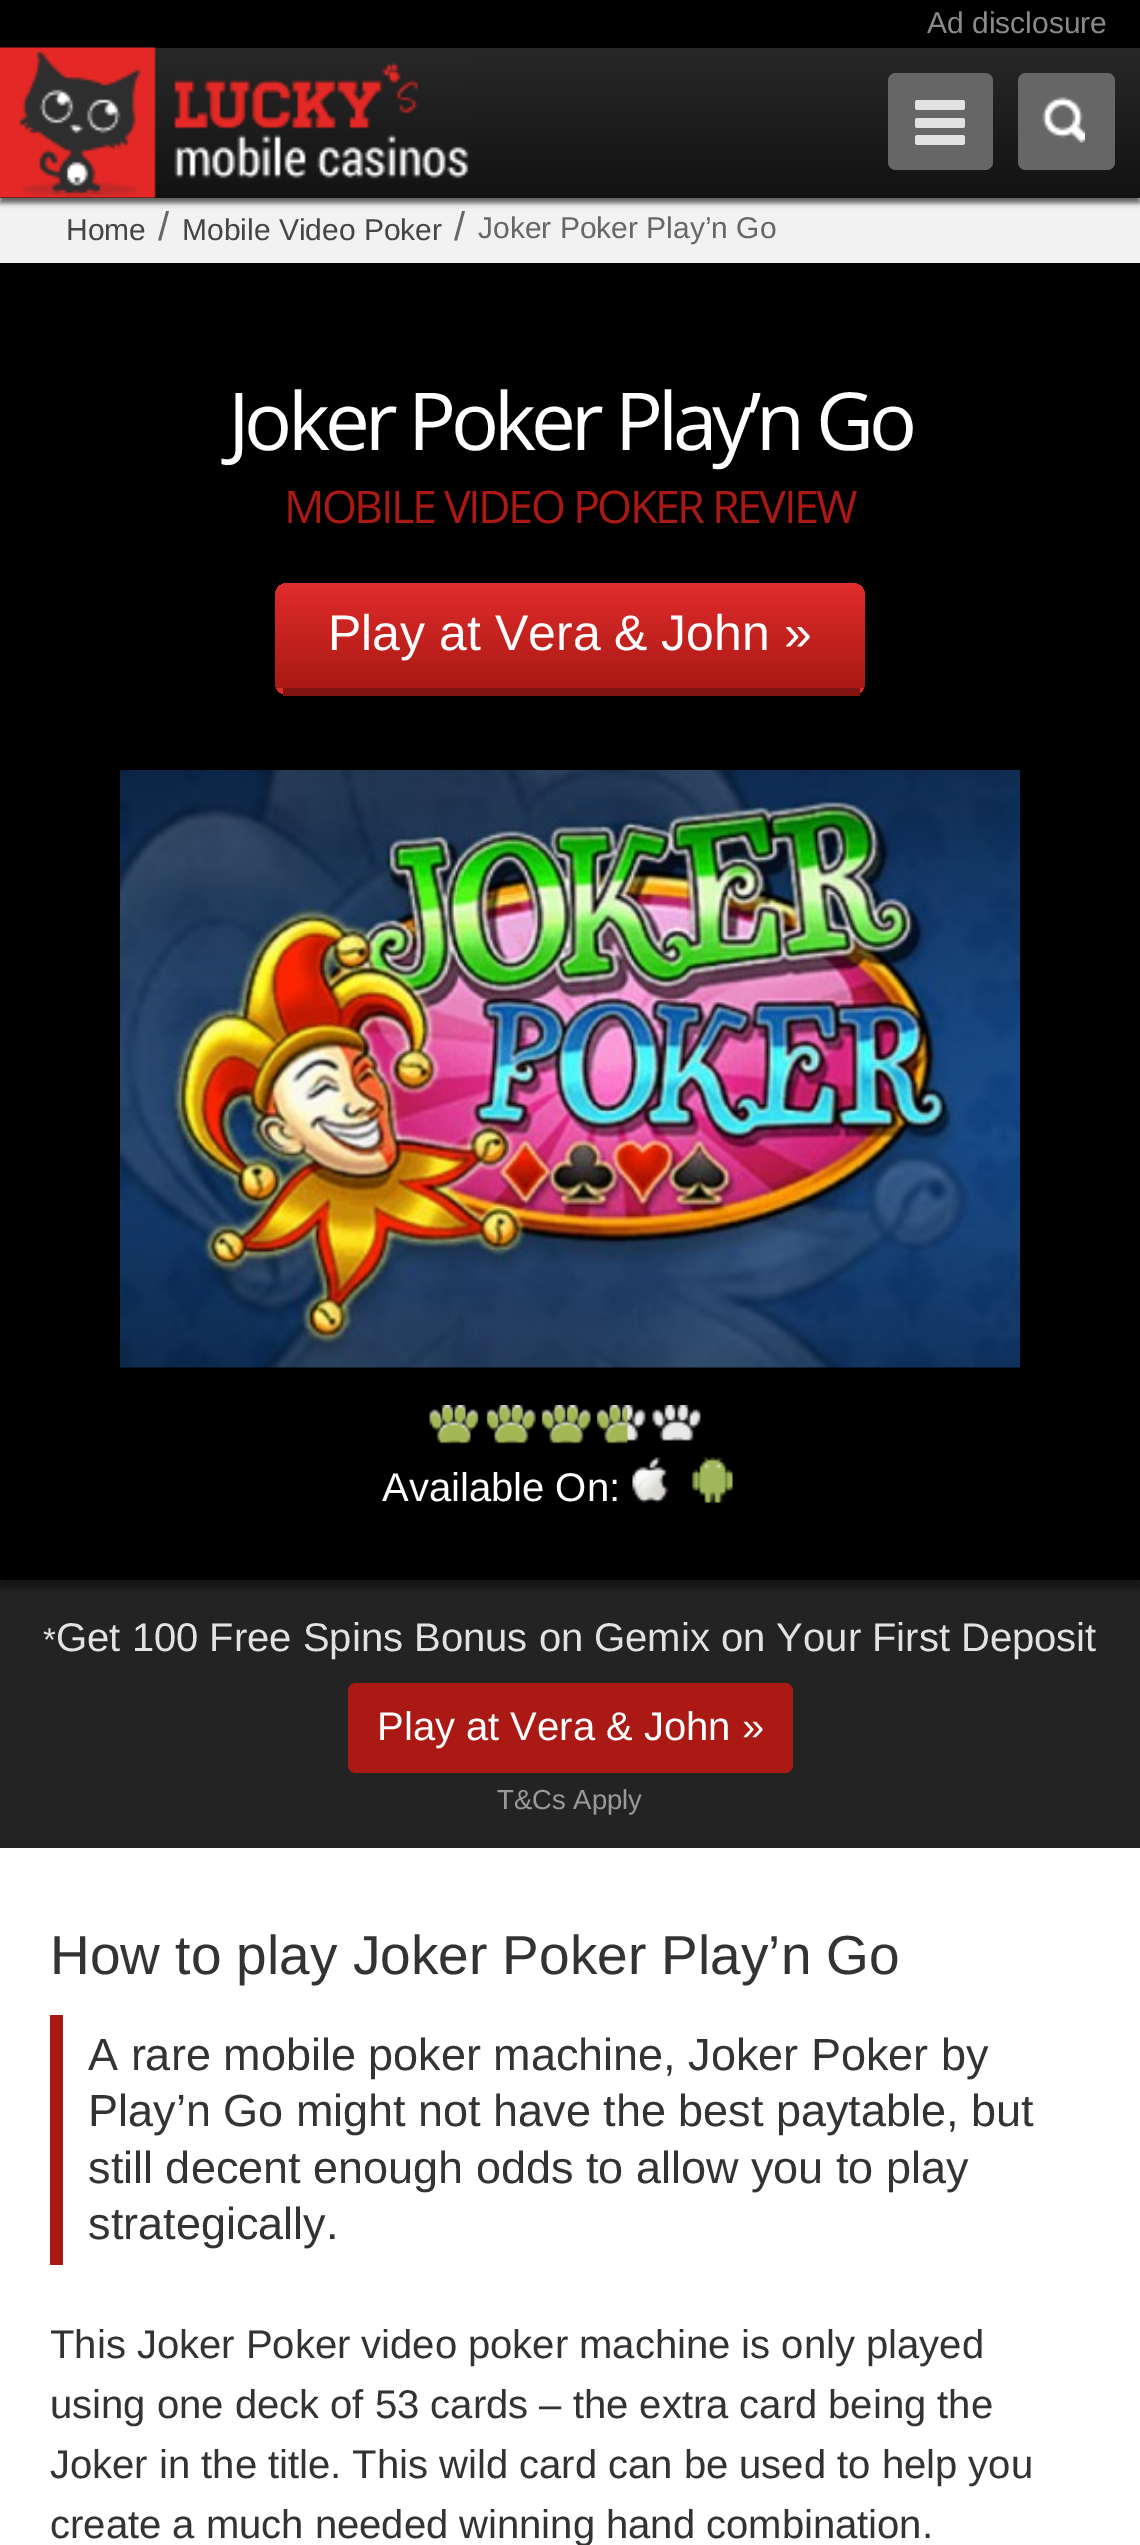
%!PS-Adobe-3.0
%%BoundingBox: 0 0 1140 2545
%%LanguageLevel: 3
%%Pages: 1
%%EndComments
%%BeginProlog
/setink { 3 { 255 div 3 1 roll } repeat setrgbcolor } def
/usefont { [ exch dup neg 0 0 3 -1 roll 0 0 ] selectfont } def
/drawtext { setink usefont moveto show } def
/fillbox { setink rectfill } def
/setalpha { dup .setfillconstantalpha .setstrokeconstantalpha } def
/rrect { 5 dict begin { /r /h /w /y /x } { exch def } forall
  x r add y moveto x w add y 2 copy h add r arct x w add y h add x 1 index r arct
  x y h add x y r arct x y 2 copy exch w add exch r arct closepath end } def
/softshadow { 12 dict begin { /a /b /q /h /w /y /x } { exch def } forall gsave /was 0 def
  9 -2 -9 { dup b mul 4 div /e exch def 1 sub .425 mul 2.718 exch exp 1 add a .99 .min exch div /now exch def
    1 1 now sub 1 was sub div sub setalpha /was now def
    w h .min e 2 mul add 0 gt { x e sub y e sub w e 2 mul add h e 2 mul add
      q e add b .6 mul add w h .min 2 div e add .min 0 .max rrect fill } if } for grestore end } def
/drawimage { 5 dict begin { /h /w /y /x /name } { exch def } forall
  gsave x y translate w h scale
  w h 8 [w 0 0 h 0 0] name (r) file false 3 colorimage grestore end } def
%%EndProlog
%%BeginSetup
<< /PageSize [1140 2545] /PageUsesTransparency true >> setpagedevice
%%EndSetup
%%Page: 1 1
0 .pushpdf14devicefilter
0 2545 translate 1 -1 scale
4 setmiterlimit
0 0 1140 2545 255 255 255 fillbox
0 0 1140 48 0 0 0 fillbox
(Ad disclosure) 927 33 /LiberationSans-Regular 30 137 137 137 drawtext
0 198 1140 62 242 242 242 fillbox
0 0 0 setink
0 53 1140 150 0 2.5 0.6 softshadow
gsave 0 48 moveto 1140 48 lineto 1140 198 lineto 0 198 lineto closepath clip newpath
<< /ShadingType 2 /ColorSpace /DeviceRGB /Coords [570 47 570 198] /Extend [true true] /Function << /FunctionType 2 /Domain [0 1] /C0 [0.157 0.157 0.157] /C1 [0.071 0.071 0.071] /N 1 >> >> shfill grestore
(assets/img1.rgb) 0 47 469 151 drawimage
102 102 102 setink
888 73 105 97 8 rrect fill
226 226 226 setink
915 100 50 10 2.5 rrect fill
915 118 50 10 2.5 rrect fill
915 135 50 10 2.5 rrect fill
102 102 102 setink
1018 73 97 97 8 rrect fill
(assets/img2.rgb) 1042 96 43 47 drawimage
0 260 1140 3 239 239 239 fillbox
(Home) 66 240 /LiberationSans-Regular 30 69 69 69 drawtext
(/) 158 240 /LiberationSans-Regular 40 103 103 103 drawtext
(Mobile Video Poker) 182 240 /LiberationSans-Regular 30 69 69 69 drawtext
(/) 454 240 /LiberationSans-Regular 40 103 103 103 drawtext
(Joker Poker Play’n Go) 478 238 /LiberationSans-Regular 30 103 103 103 drawtext
0 1580 1140 268 35 35 35 fillbox
0 0 0 setink
0 270 1140 1318 0 2.5 0.4 softshadow
0 263 1140 1317 0 0 0 fillbox
/OpenSans-Regular 80 usefont
254 254 254 setink
228 450 moveto -5 0 (Joker Poker Play’n Go) ashow
/OpenSans-Regular 45 usefont
170 25 20 setink
284 523 moveto -2.5 0 (MOBILE VIDEO POKER REVIEW) ashow
gsave
275 583 590 112 13 rrect clip newpath
gsave 288 583 moveto 852 583 lineto 859 583 865 589 865 596 curveto 865 688 lineto 275 688 lineto 275 596 lineto 275 589 281 583 288 583 curveto closepath clip newpath
<< /ShadingType 2 /ColorSpace /DeviceRGB /Coords [570 583 570 688] /Extend [true true] /Function << /FunctionType 3 /Domain [0 1] /Functions [<< /FunctionType 2 /Domain [0 1] /C0 [0.878 0.173 0.173] /C1 [0.878 0.173 0.173] /N 1 >> << /FunctionType 2 /Domain [0 1] /C0 [0.878 0.173 0.173] /C1 [0.667 0.098 0.078] /N 1 >>] /Bounds [0.01] /Encode [0 1 0 1] >> >> shfill grestore
gsave 275 688 moveto 865 688 lineto 865 694 lineto 275 694 lineto closepath clip newpath
<< /ShadingType 2 /ColorSpace /DeviceRGB /Coords [570 688 570 793] /Extend [true true] /Function << /FunctionType 3 /Domain [0 1] /Functions [<< /FunctionType 2 /Domain [0 1] /C0 [0.878 0.173 0.173] /C1 [0.878 0.173 0.173] /N 1 >> << /FunctionType 2 /Domain [0 1] /C0 [0.878 0.173 0.173] /C1 [0.667 0.098 0.078] /N 1 >>] /Bounds [0.01] /Encode [0 1 0 1] >> >> shfill grestore
grestore
283 688 577 8 128 19 15 fillbox
(Play at Vera & John ») 328 650 /LiberationSans-Regular 50 254 254 254 drawtext
(assets/img3.rgb) 120 770 900 598 drawimage
(assets/img4.rgb) 429 1405 272 36 drawimage
(assets/img5.rgb) 429 1405 199 39 drawimage
(Available On:) 382 1501 /LiberationSans-Regular 40 254 254 254 drawtext
(assets/img6.rgb) 632 1457 37 46 drawimage
(assets/img7.rgb) 691 1457 42 46 drawimage
(*) 43 1651 /LiberationSans-Regular 33 226 226 226 drawtext
(Get 100 Free Spins Bonus on Gemix on Your First Deposit) 56 1651 /LiberationSans-Regular 40 226 226 226 drawtext
170 25 20 setink
348 1683 445 90 8 rrect fill
(Play at Vera & John ») 377 1740 /LiberationSans-Regular 40 254 254 254 drawtext
(T&Cs Apply) 497 1809 /LiberationSans-Regular 27.5 153 153 153 drawtext
(How to play Joker Poker Play’n Go) 50 1974 /LiberationSans-Regular 55 51 51 51 drawtext
50 2015 13 250 170 25 20 fillbox
(A rare mobile poker machine, Joker Poker by) 88 2070 /LiberationSans-Regular 45 51 51 51 drawtext
(Play’n Go might not have the best paytable, but) 88 2126 /LiberationSans-Regular 45 51 51 51 drawtext
(still decent enough odds to allow you to play) 88 2183 /LiberationSans-Regular 45 51 51 51 drawtext
(strategically.) 88 2239 /LiberationSans-Regular 45 51 51 51 drawtext
(This Joker Poker video poker machine is only played) 50 2358 /LiberationSans-Regular 40 51 51 51 drawtext
(using one deck of 53 cards – the extra card being the) 50 2418 /LiberationSans-Regular 40 51 51 51 drawtext
(Joker in the title. This wild card can be used to help you) 50 2478 /LiberationSans-Regular 40 51 51 51 drawtext
(create a much needed winning hand combination.) 50 2538 /LiberationSans-Regular 40 51 51 51 drawtext
.poppdf14devicefilter showpage
%%EOF
